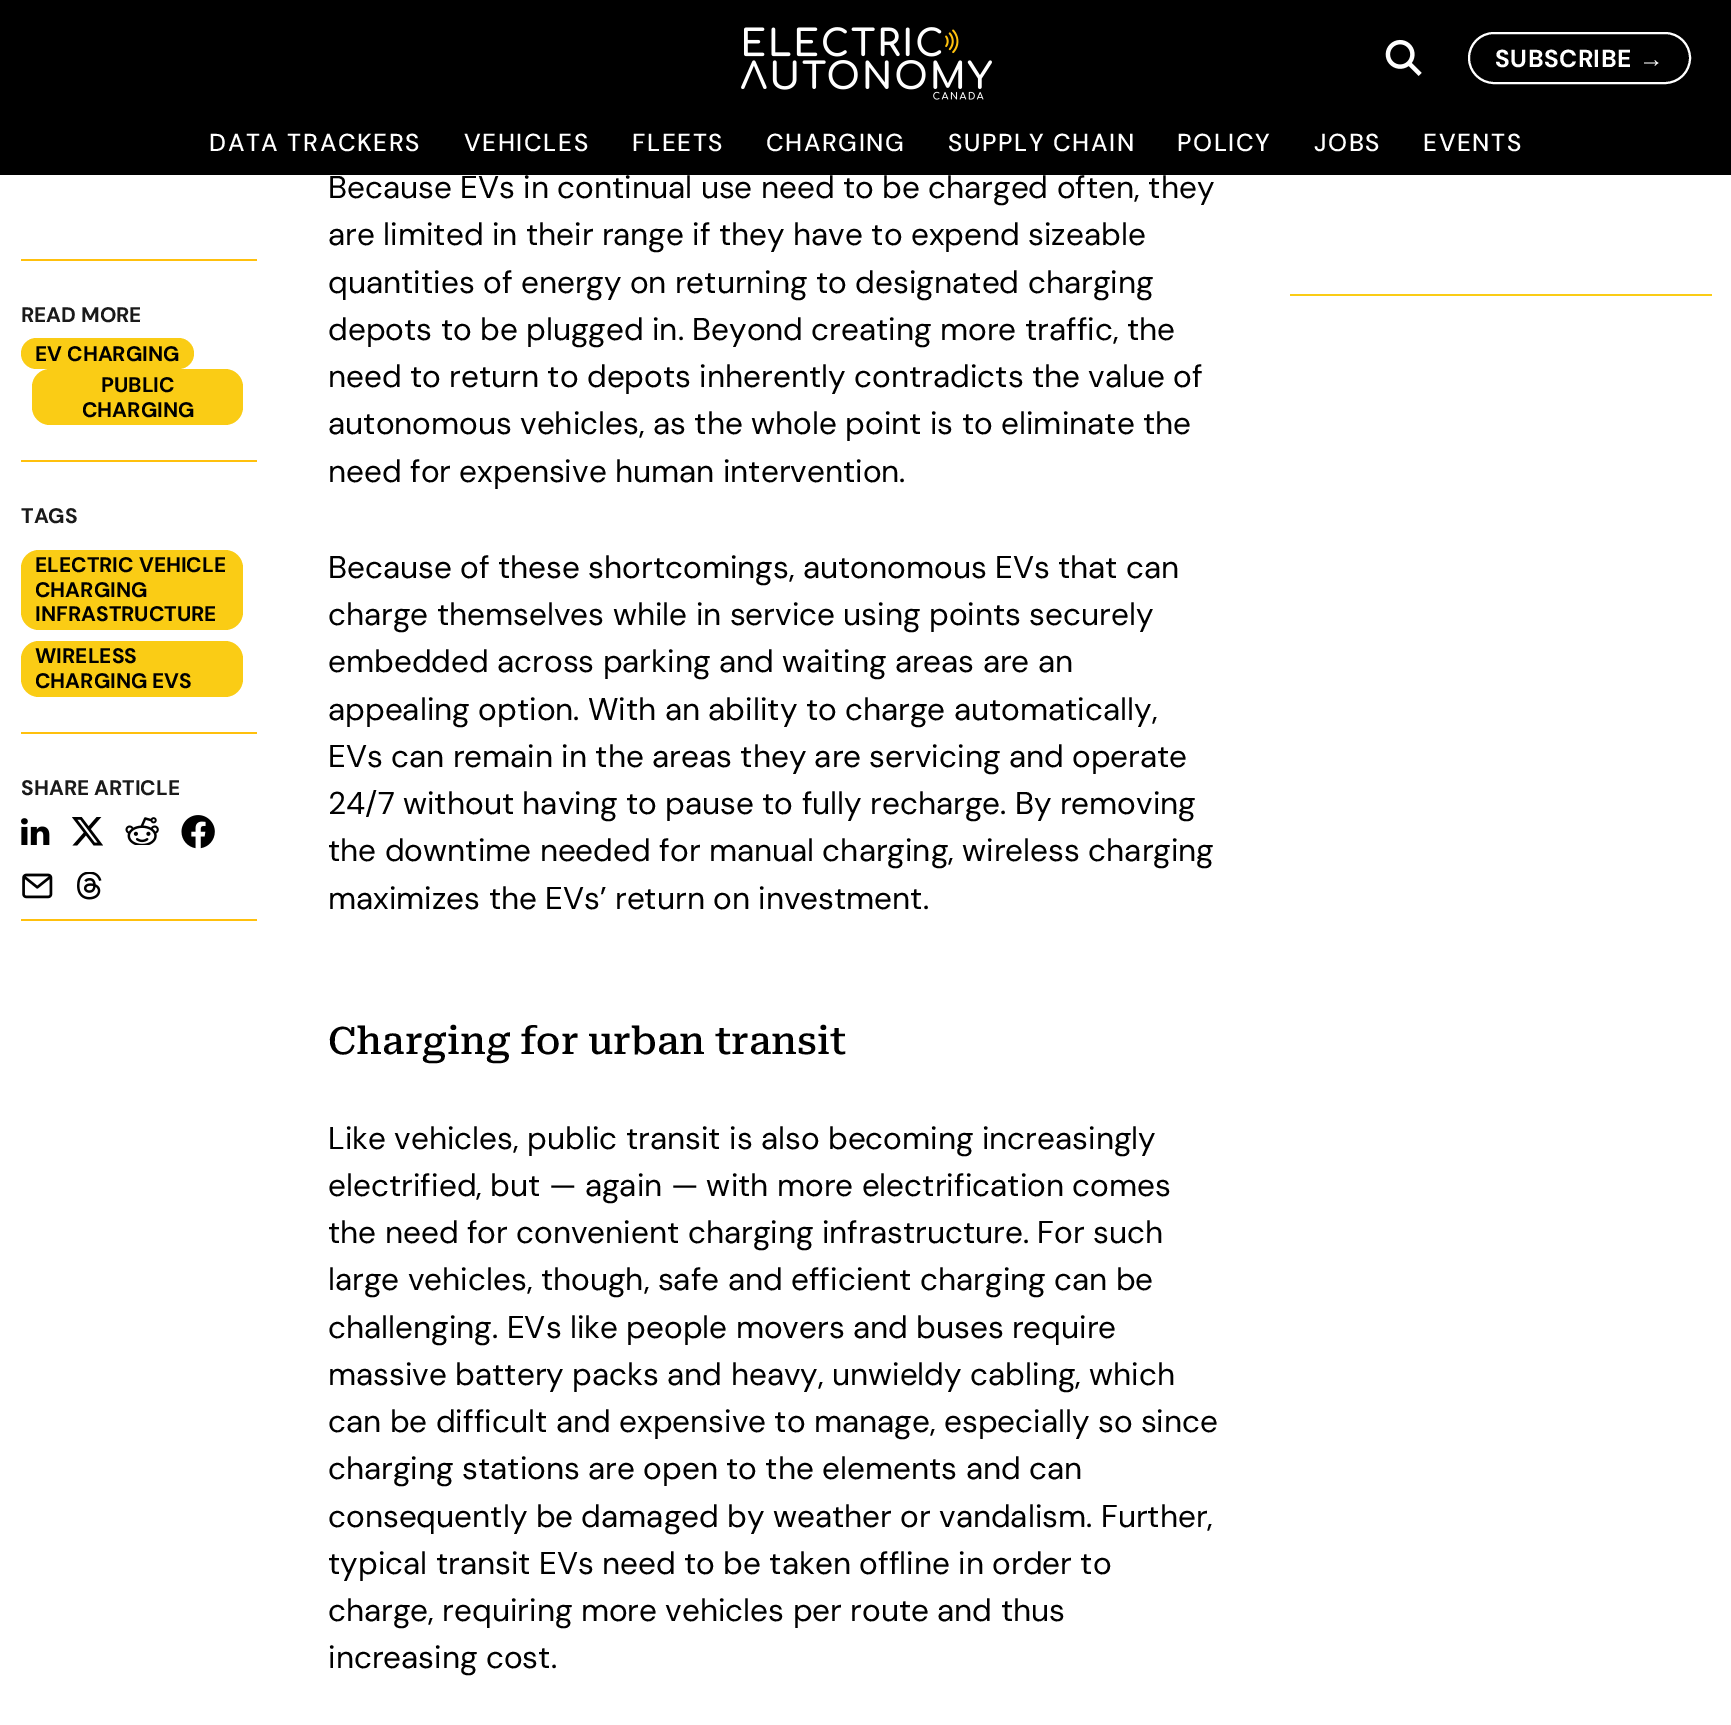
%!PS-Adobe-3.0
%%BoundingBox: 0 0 1731 1725
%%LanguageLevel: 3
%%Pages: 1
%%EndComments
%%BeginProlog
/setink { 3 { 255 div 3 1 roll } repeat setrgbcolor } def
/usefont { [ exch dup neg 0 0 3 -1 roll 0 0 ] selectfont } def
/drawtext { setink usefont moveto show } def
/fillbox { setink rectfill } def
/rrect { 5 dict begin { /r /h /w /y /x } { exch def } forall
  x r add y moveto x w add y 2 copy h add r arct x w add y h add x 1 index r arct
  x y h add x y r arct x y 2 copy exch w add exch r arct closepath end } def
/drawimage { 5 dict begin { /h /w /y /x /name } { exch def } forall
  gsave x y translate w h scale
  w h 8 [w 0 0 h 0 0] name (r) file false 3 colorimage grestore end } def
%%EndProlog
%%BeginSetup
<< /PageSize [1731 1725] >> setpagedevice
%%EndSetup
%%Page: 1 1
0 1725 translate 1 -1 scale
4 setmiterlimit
0 0 1731 1725 255 255 255 fillbox
0 0 1731 175 0 0 0 fillbox
(assets/img1.rgb) 741 27 251 73 drawimage
(assets/img2.rgb) 1385 39 37 37 drawimage
255 255 255 setink
2 setlinewidth
1469 33 221 50 25 rrect stroke
/DMSans-Bold 24.5 usefont
1495 67 moveto 0.5 0 (SUBSCRIBE) ashow
/LiberationSans-Bold 24.5 usefont
1639 67 moveto 0.5 0 (→) ashow
/DMSans-Medium 24.5 usefont
209 151 moveto 1.6 0 (DATA TRACKERS) ashow
464 151 moveto 1.6 0 (VEHICLES) ashow
632 151 moveto 1.6 0 (FLEETS) ashow
766 151 moveto 1.6 0 (CHARGING) ashow
948 151 moveto 1.6 0 (SUPPLY CHAIN) ashow
1177 151 moveto 1.6 0 (POLICY) ashow
1314 151 moveto 1.6 0 (JOBS) ashow
1423 151 moveto 1.6 0 (EVENTS) ashow
21 259 236 2 255 192 13 fillbox
21 460 236 2 255 192 13 fillbox
(READ MORE) 21 322 /DMSans-Bold 21 26 26 26 drawtext
250 204 21 setink
21 338 173 31 15.5 rrect fill
(EV CHARGING) 35 361 /DMSans-Bold 21 0 0 0 drawtext
250 204 21 setink
32 369 211 56 18 rrect fill
(PUBLIC) 101 392 /DMSans-Bold 21 0 0 0 drawtext
(CHARGING) 82 417 /DMSans-Bold 21 0 0 0 drawtext
21 732 236 2 255 192 13 fillbox
(TAGS) 21 523 /DMSans-Bold 21 26 26 26 drawtext
250 204 21 setink
21 550 222 80 18 rrect fill
(ELECTRIC VEHICLE) 35 572 /DMSans-Bold 21 0 0 0 drawtext
(CHARGING) 35 597 /DMSans-Bold 21 0 0 0 drawtext
(INFRASTRUCTURE) 35 621 /DMSans-Bold 21 0 0 0 drawtext
250 204 21 setink
21 641 222 56 18 rrect fill
(WIRELESS) 35 663 /DMSans-Bold 21 0 0 0 drawtext
(CHARGING EVS) 35 688 /DMSans-Bold 21 0 0 0 drawtext
21 919 236 2 255 192 13 fillbox
(SHARE ARTICLE) 21 795 /DMSans-Bold 21 26 26 26 drawtext
(assets/img3.rgb) 21 818 29 27 drawimage
(assets/img4.rgb) 72 817 31 29 drawimage
(assets/img5.rgb) 125 817 34 28 drawimage
(assets/img6.rgb) 181 815 34 34 drawimage
(assets/img7.rgb) 22 873 31 26 drawimage
(assets/img8.rgb) 77 872 25 28 drawimage
(Because EVs in continual use need to be charged often, they) 328 198 /DMSans-Regular 31.5 0 0 0 drawtext
(are limited in their range if they have to expend sizeable) 328 245 /DMSans-Regular 31.5 0 0 0 drawtext
(quantities of energy on returning to designated charging) 328 293 /DMSans-Regular 31.5 0 0 0 drawtext
(depots to be plugged in. Beyond creating more traffic, the) 328 340 /DMSans-Regular 31.5 0 0 0 drawtext
(need to return to depots inherently contradicts the value of) 328 387 /DMSans-Regular 31.5 0 0 0 drawtext
(autonomous vehicles, as the whole point is to eliminate the) 328 434 /DMSans-Regular 31.5 0 0 0 drawtext
(need for expensive human intervention.) 328 482 /DMSans-Regular 31.5 0 0 0 drawtext
(Because of these shortcomings, autonomous EVs that can) 328 578 /DMSans-Regular 31.5 0 0 0 drawtext
(charge themselves while in service using points securely) 328 625 /DMSans-Regular 31.5 0 0 0 drawtext
(embedded across parking and waiting areas are an) 328 672 /DMSans-Regular 31.5 0 0 0 drawtext
(appealing option. With an ability to charge automatically,) 328 720 /DMSans-Regular 31.5 0 0 0 drawtext
(EVs can remain in the areas they are servicing and operate) 328 767 /DMSans-Regular 31.5 0 0 0 drawtext
(24/7 without having to pause to fully recharge. By removing) 328 814 /DMSans-Regular 31.5 0 0 0 drawtext
(the downtime needed for manual charging, wireless charging) 328 861 /DMSans-Regular 31.5 0 0 0 drawtext
(maximizes the EVs’ return on investment.) 328 909 /DMSans-Regular 31.5 0 0 0 drawtext
(Charging for urban transit) 328 1054 /RobotoSerif-Medium 37.75 0 0 0 drawtext
(Like vehicles, public transit is also becoming increasingly) 328 1149 /DMSans-Regular 31.5 0 0 0 drawtext
(electrified, but — again — with more electrification comes) 328 1196 /DMSans-Regular 31.5 0 0 0 drawtext
(the need for convenient charging infrastructure. For such) 328 1243 /DMSans-Regular 31.5 0 0 0 drawtext
(large vehicles, though, safe and efficient charging can be) 328 1290 /DMSans-Regular 31.5 0 0 0 drawtext
(challenging. EVs like people movers and buses require) 328 1338 /DMSans-Regular 31.5 0 0 0 drawtext
(massive battery packs and heavy, unwieldy cabling, which) 328 1385 /DMSans-Regular 31.5 0 0 0 drawtext
(can be difficult and expensive to manage, especially so since) 328 1432 /DMSans-Regular 31.5 0 0 0 drawtext
(charging stations are open to the elements and can) 328 1479 /DMSans-Regular 31.5 0 0 0 drawtext
(consequently be damaged by weather or vandalism. Further,) 328 1527 /DMSans-Regular 31.5 0 0 0 drawtext
(typical transit EVs need to be taken offline in order to) 328 1574 /DMSans-Regular 31.5 0 0 0 drawtext
(charge, requiring more vehicles per route and thus) 328 1621 /DMSans-Regular 31.5 0 0 0 drawtext
(increasing cost.) 328 1668 /DMSans-Regular 31.5 0 0 0 drawtext
1290 294 422 2 250 204 21 fillbox
showpage
%%EOF
